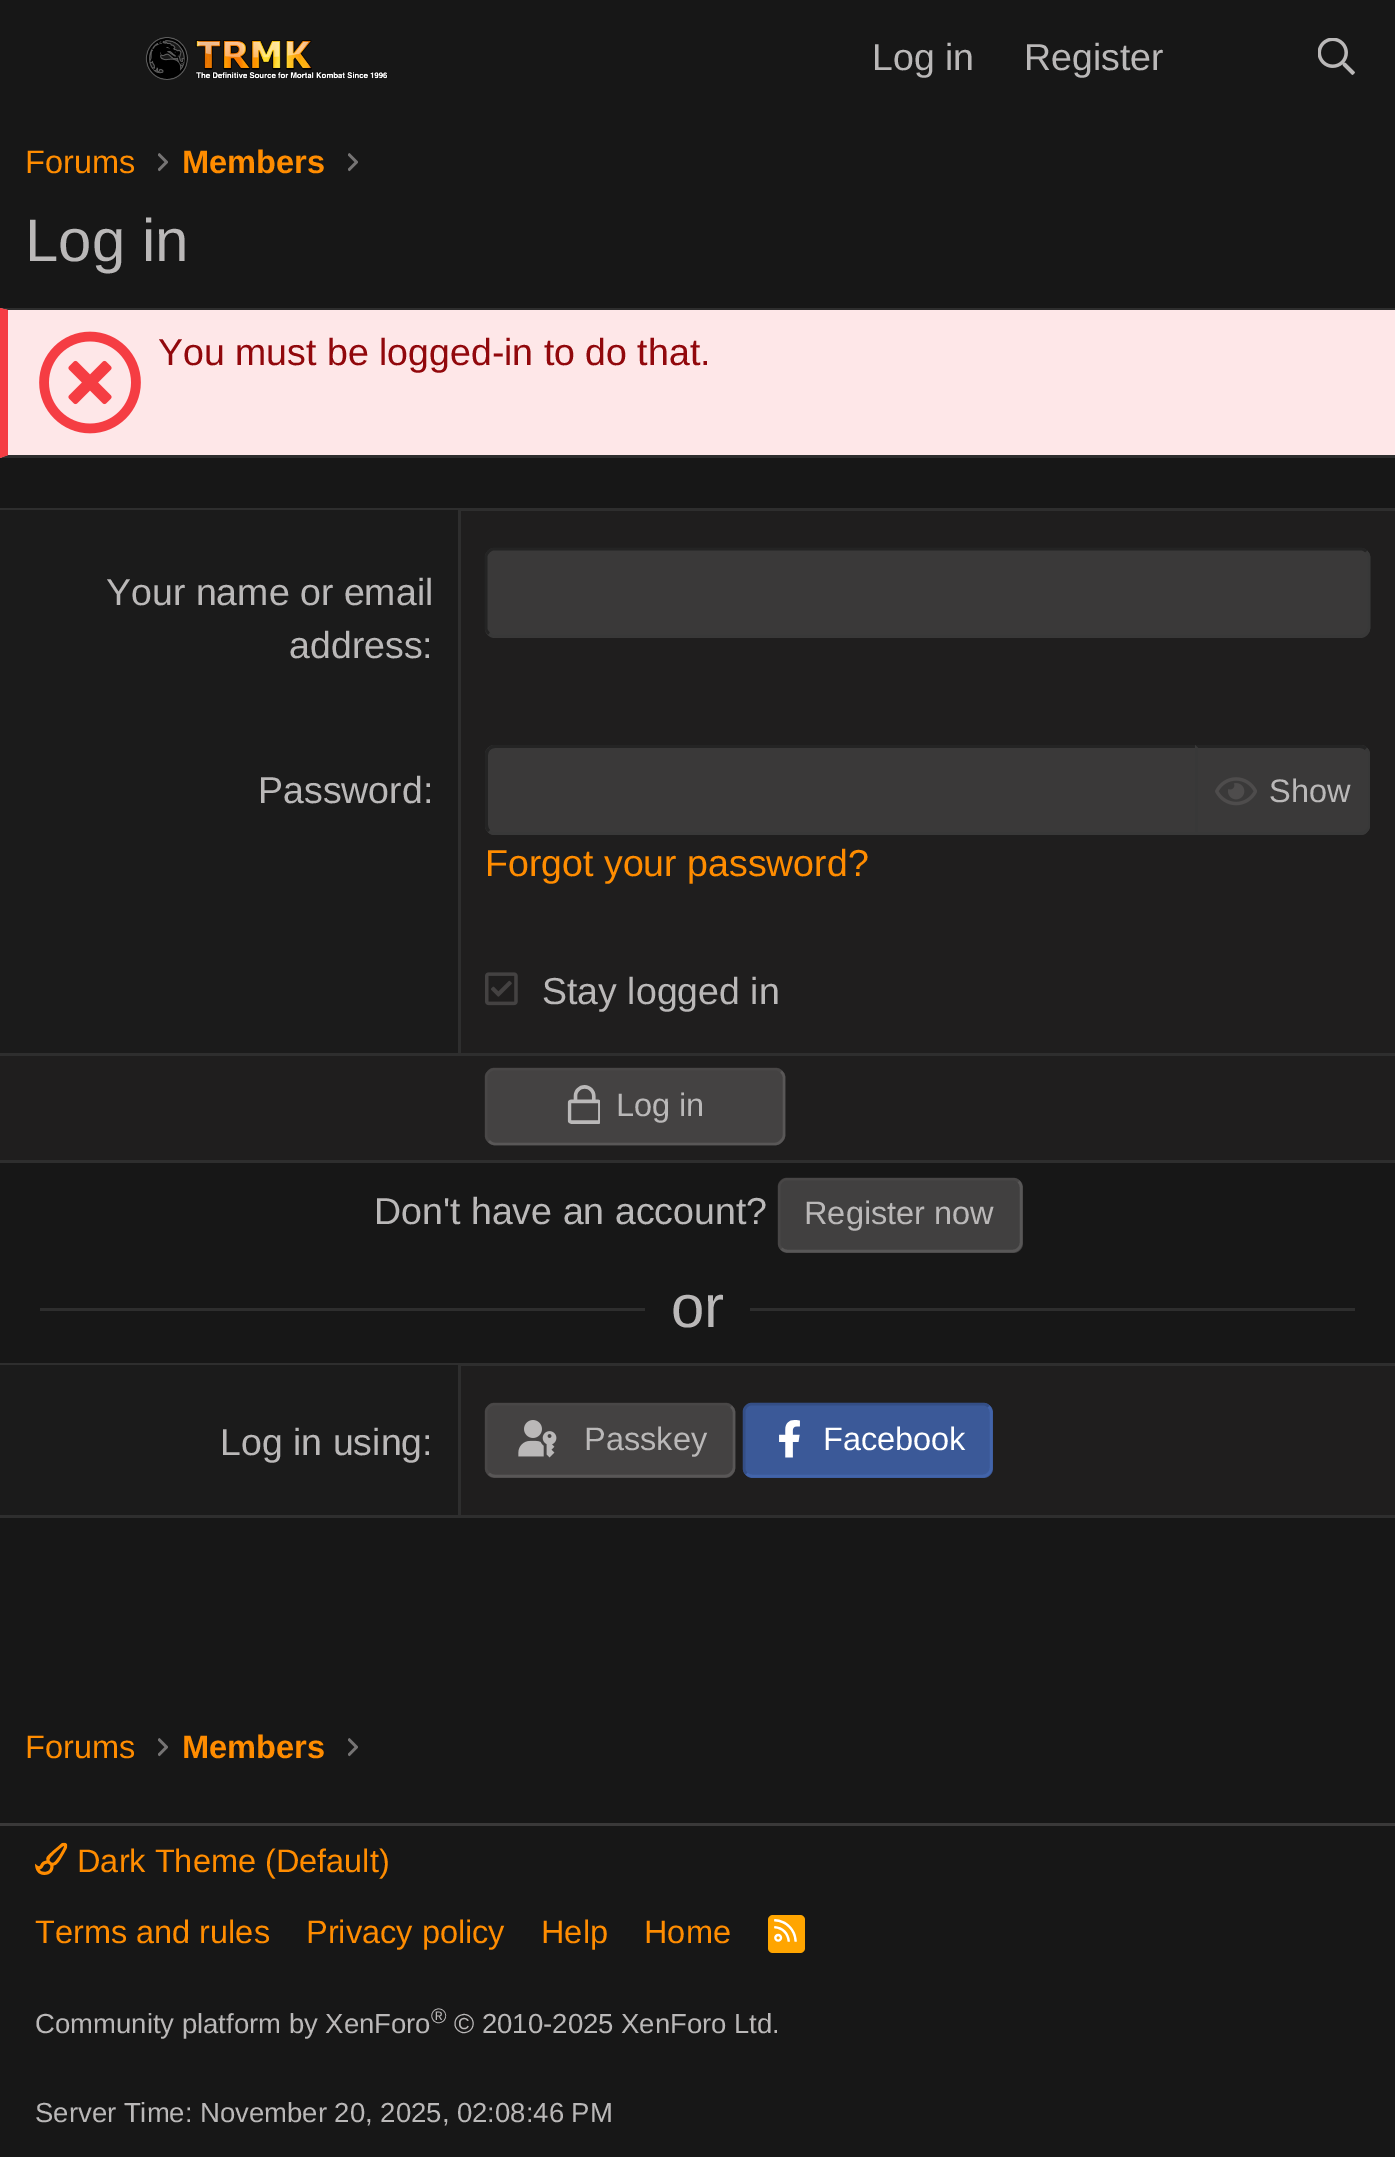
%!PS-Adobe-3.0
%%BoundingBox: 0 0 1395 2157
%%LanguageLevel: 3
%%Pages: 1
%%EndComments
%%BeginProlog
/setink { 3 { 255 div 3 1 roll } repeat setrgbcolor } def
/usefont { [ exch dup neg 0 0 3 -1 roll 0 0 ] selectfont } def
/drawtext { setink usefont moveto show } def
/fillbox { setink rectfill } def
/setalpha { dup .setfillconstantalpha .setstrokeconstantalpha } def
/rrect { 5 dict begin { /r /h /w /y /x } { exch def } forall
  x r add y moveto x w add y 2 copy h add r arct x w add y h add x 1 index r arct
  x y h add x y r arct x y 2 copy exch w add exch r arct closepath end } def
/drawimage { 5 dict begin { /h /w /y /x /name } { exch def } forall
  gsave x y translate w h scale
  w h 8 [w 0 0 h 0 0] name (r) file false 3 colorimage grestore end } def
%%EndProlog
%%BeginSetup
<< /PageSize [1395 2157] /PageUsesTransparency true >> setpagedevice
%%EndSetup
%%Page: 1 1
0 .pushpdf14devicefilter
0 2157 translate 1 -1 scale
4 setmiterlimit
0 0 1395 2157 23 23 23 fillbox
(assets/img1.rgb) 145 37 243 43 drawimage
(Log in) 872 70 /LiberationSans-Regular 37.5 186 184 184 drawtext
(Register) 1024 70 /LiberationSans-Regular 37.5 186 184 184 drawtext
(assets/img2.rgb) 1318 38 37 37 drawimage
(Forums) 25 173 /LiberationSans-Regular 32.5 255 140 0 drawtext
(assets/img3.rgb) 158 153 10 19 drawimage
(Members) 182 173 /LiberationSans-Bold 32.5 255 140 0 drawtext
(assets/img3.rgb) 348 153 10 19 drawimage
(Log in) 25 261 /LiberationSans-Regular 60 186 184 184 drawtext
0 308 1395 150 254 231 232 fillbox
46 46 46 setink
0 308 moveto 1395 308 lineto 1395 310 lineto 8 310 lineto closepath fill
1395 458 moveto 0 458 lineto 8 455 lineto 1395 455 lineto closepath fill
245 61 67 setink
0 458 moveto 0 308 lineto 8 310 lineto 8 455 lineto closepath fill
(assets/img4.rgb) 39 331 102 103 drawimage
(You must be logged-in to do that.) 158 365 /LiberationSans-Regular 37.5 145 8 12 drawtext
0 511 1395 649 31 30 30 fillbox
0 508 1395 3 46 46 46 fillbox
0 1160 1395 3 46 46 46 fillbox
0 510 458 543 27 27 27 fillbox
458 510 3 543 46 46 46 fillbox
(Your name or email) 106 605 /LiberationSans-Regular 37.5 186 184 184 drawtext
(address:) 289 658 /LiberationSans-Regular 37.5 186 184 184 drawtext
58 57 57 setink
485 548 885 90 10 rrect fill
56 56 56 setink
2.5 setlinewidth
1366 551.5 moveto 1368 553 1369 555 1369 557.5 curveto 1369 627.5 lineto 1369 630 1368 632 1366 633.5 curveto 1364.5 635.5 1362.5 636 1360 636 curveto 495 636 lineto 492.5 636 490.5 635.5 489 633.5 curveto stroke
36 36 36 setink
489 633.5 moveto 487 632 486 630 486 627.5 curveto 486 557.5 lineto 486 555 487 553 489 551.5 curveto 490.5 549.5 492.5 549 495 549 curveto 1360 549 lineto 1362.5 549 1364.5 549.5 1366 551.5 curveto stroke
(Password:) 258 803 /LiberationSans-Regular 37.5 186 184 184 drawtext
58 57 57 setink
495 745 moveto 1195 745 lineto 1195 835 lineto 495 835 lineto 489.5 835 485 830.5 485 825 curveto 485 755 lineto 485 749.5 489.5 745 495 745 curveto closepath fill
36 36 36 setink
495 745 moveto 492 745 490 746 488 748 curveto 490 750 lineto 491 749 493 748 495 748 curveto 1195 748 lineto 1195 745 lineto closepath fill
56 56 56 setink
1195 835 moveto 1195 832 lineto 495 832 lineto 493 832 491 831 490 830 curveto 488 832 lineto 490 834 492 835 495 835 curveto closepath fill
36 36 36 setink
485 755 moveto 485 825 lineto 485 828 486 830 488 832 curveto 490 830 lineto 489 829 488 827 488 825 curveto 488 755 lineto 488 753 489 751 490 750 curveto 488 748 lineto 486 750 485 752 485 755 curveto closepath fill
58 57 57 setink
1195 745 moveto 1360 745 lineto 1365.5 745 1370 749.5 1370 755 curveto 1370 825 lineto 1370 830.5 1365.5 835 1360 835 curveto 1195 835 lineto closepath fill
36 36 36 setink
1195 745 moveto 1198 748 lineto 1360 748 lineto 1362 748 1364 749 1365 750 curveto 1367 748 lineto 1366 746 1363 745 1360 745 curveto closepath fill
56 56 56 setink
1370 825 moveto 1370 755 lineto 1370 752 1369 750 1367 748 curveto 1365 750 lineto 1367 751 1368 753 1368 755 curveto 1368 825 lineto 1368 827 1367 829 1365 830 curveto 1367 832 lineto 1369 830 1370 828 1370 825 curveto closepath fill
1360 835 moveto 1363 835 1366 834 1367 832 curveto 1365 830 lineto 1364 831 1362 832 1360 832 curveto 1198 832 lineto 1195 835 lineto closepath fill
1195 745 moveto 1195 835 lineto 1198 832 lineto 1198 748 lineto closepath fill
(assets/img5.rgb) 1215 777 42 29 drawimage
(Show) 1269 802 /LiberationSans-Regular 32.5 186 184 184 drawtext
(Forgot your password?) 485 876 /LiberationSans-Regular 37.5 255 140 0 drawtext
(assets/img6.rgb) 485 972 33 34 drawimage
(Stay logged in) 542 1004 /LiberationSans-Regular 37.5 186 184 184 drawtext
0 1053 1395 3 46 46 46 fillbox
68 66 66 setink
485 1068 300 77 10 rrect fill
0.65 setalpha
101 99 99 setink
781 1071.5 moveto 783 1073 784 1075 784 1077.5 curveto 784 1135 lineto 784 1137.5 783 1139.5 781 1141 curveto 779.5 1143 777.5 1144 775 1144 curveto 495 1144 lineto 492.5 1144 490.5 1143 489 1141 curveto stroke
75 73 73 setink
489 1141 moveto 487 1139.5 486 1137.5 486 1135 curveto 486 1077.5 lineto 486 1075 487 1073 489 1071.5 curveto 490.5 1069.5 492.5 1069 495 1069 curveto 775 1069 lineto 777.5 1069 779.5 1069.5 781 1071.5 curveto stroke
1 setalpha
(assets/img7.rgb) 567 1085 33 39 drawimage
(Log in) 616 1116 /LiberationSans-Regular 32.5 186 184 184 drawtext
(Don't have an account?) 374 1224 /LiberationSans-Regular 37.5 186 184 184 drawtext
65 64 64 setink
778 1178 245 75 10 rrect fill
0.65 setalpha
101 99 99 setink
1018.5 1181.5 moveto 1020.5 1183 1021 1185 1021 1187.5 curveto 1021 1242.5 lineto 1021 1245 1020.5 1247 1018.5 1248.5 curveto 1017 1250.5 1015 1251 1012.5 1251 curveto 787.5 1251 lineto 785 1251 783 1250.5 781.5 1248.5 curveto stroke
75 73 73 setink
781.5 1248.5 moveto 779.5 1247 779 1245 779 1242.5 curveto 779 1187.5 lineto 779 1185 779.5 1183 781.5 1181.5 curveto 783 1179.5 785 1179 787.5 1179 curveto 1012.5 1179 lineto 1015 1179 1017 1179.5 1018.5 1181.5 curveto stroke
1 setalpha
(Register now) 804 1224 /LiberationSans-Regular 32.5 186 184 184 drawtext
40 1308 605 3 46 46 46 fillbox
(or) 671 1327 /LiberationSans-Regular 60 186 184 184 drawtext
750 1308 605 3 46 46 46 fillbox
461 1366 934 149 31 30 30 fillbox
0 1363 1395 3 46 46 46 fillbox
0 1515 1395 3 46 46 46 fillbox
0 1365 458 150 27 27 27 fillbox
458 1365 3 150 46 46 46 fillbox
(Log in using:) 220 1455 /LiberationSans-Regular 37.5 186 184 184 drawtext
68 66 66 setink
485 1403 250 75 10 rrect fill
0.65 setalpha
101 99 99 setink
731 1406.5 moveto 733 1408 734 1410 734 1412.5 curveto 734 1467.5 lineto 734 1470 733 1472 731 1473.5 curveto 729.5 1475.5 727.5 1476 725 1476 curveto 495 1476 lineto 492.5 1476 490.5 1475.5 489 1473.5 curveto stroke
75 73 73 setink
489 1473.5 moveto 487 1472 486 1470 486 1467.5 curveto 486 1412.5 lineto 486 1410 487 1408 489 1406.5 curveto 490.5 1404.5 492.5 1404 495 1404 curveto 725 1404 lineto 727.5 1404 729.5 1404.5 731 1406.5 curveto stroke
1 setalpha
(assets/img8.rgb) 518 1420 39 38 drawimage
(Passkey) 584 1450 /LiberationSans-Regular 32.5 186 184 184 drawtext
59 89 152 setink
743 1403 250 75 10 rrect fill
66 100 170 setink
988.5 1406.5 moveto 990.5 1408 991 1410 991 1412.5 curveto 991 1467.5 lineto 991 1470 990.5 1472 988.5 1473.5 curveto 987 1475.5 985 1476 982.5 1476 curveto 752.5 1476 lineto 750 1476 748 1475.5 746.5 1473.5 curveto stroke
52 78 134 setink
746.5 1473.5 moveto 744.5 1472 744 1470 744 1467.5 curveto 744 1412.5 lineto 744 1410 744.5 1408 746.5 1406.5 curveto 748 1404.5 750 1404 752.5 1404 curveto 982.5 1404 lineto 985 1404 987 1404.5 988.5 1406.5 curveto stroke
(assets/img9.rgb) 779 1420 21 38 drawimage
(Facebook) 823 1450 /LiberationSans-Regular 32.5 255 255 255 drawtext
(Forums) 25 1758 /LiberationSans-Regular 32.5 255 140 0 drawtext
(assets/img3.rgb) 158 1738 10 19 drawimage
(Members) 182 1758 /LiberationSans-Bold 32.5 255 140 0 drawtext
(assets/img3.rgb) 348 1738 10 19 drawimage
0 1823 1395 3 58 57 57 fillbox
(assets/img10.rgb) 35 1842 33 33 drawimage
(Dark Theme \(Default\)) 77 1872 /LiberationSans-Regular 32.5 255 140 0 drawtext
(Terms and rules) 35 1943 /LiberationSans-Regular 32.5 255 140 0 drawtext
(Privacy policy) 306 1943 /LiberationSans-Regular 32.5 255 140 0 drawtext
(Help) 541 1943 /LiberationSans-Regular 32.5 255 140 0 drawtext
(Home) 644 1943 /LiberationSans-Regular 32.5 255 140 0 drawtext
255 165 0 setink
768 1915 37 38 5 rrect fill
(assets/img11.rgb) 774 1919 23 23 drawimage
(Community platform by XenForo) 35 2033 /LiberationSans-Regular 27.5 186 184 184 drawtext
(®) 431 2023 /LiberationSans-Regular 21 186 184 184 drawtext
(© 2010-2025 XenForo Ltd.) 454 2033 /LiberationSans-Regular 27.5 186 184 184 drawtext
(Server Time: November 20, 2025, 02:08:46 PM) 35 2122 /LiberationSans-Regular 27.5 186 184 184 drawtext
.poppdf14devicefilter showpage
%%EOF
